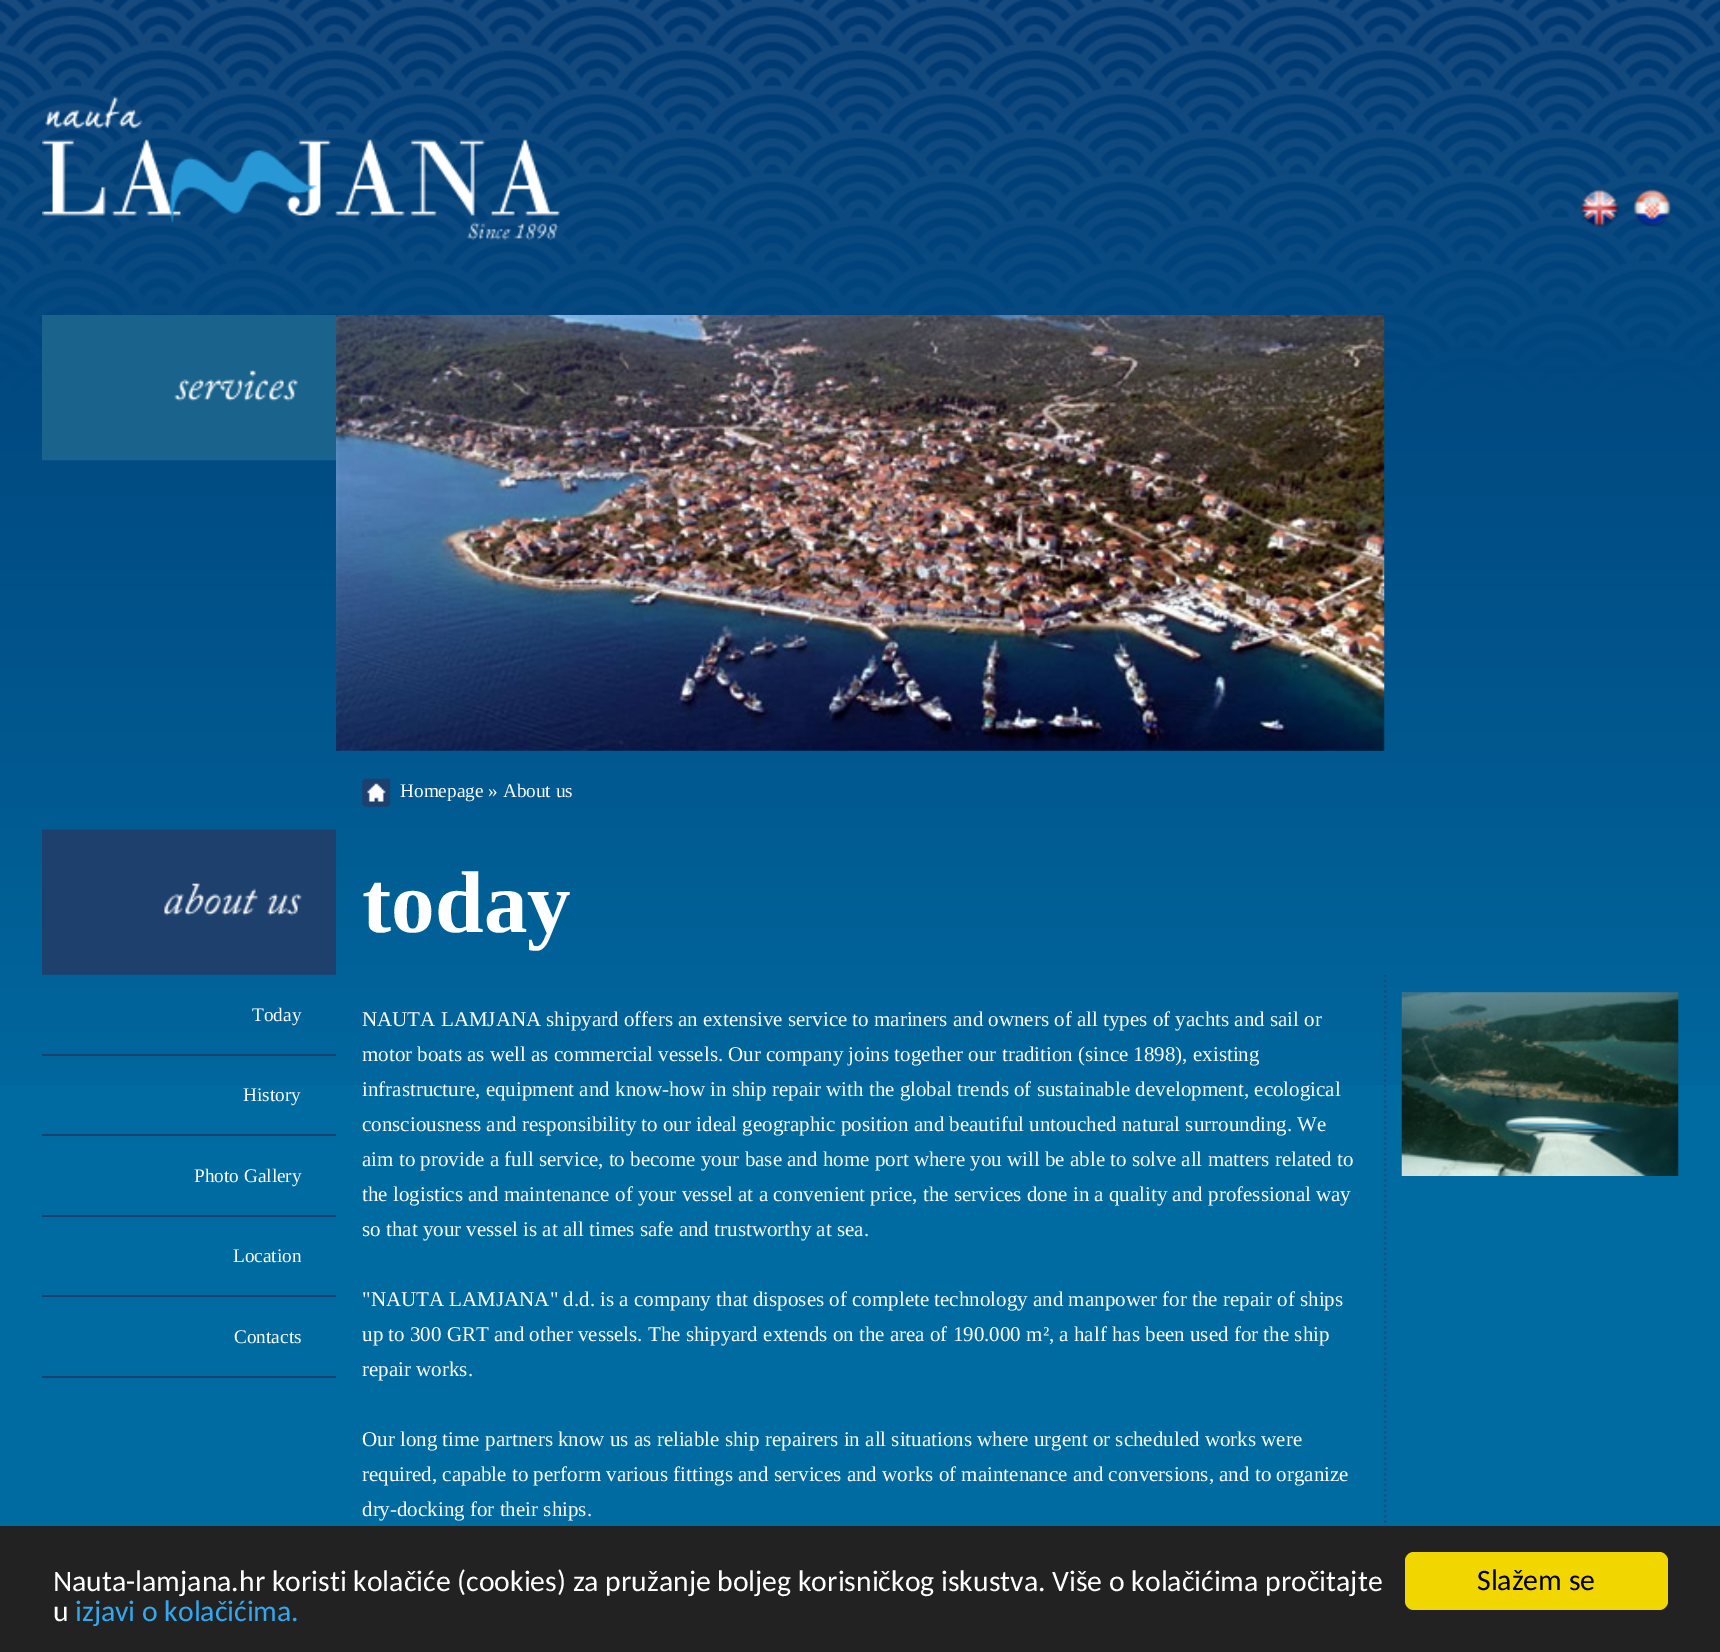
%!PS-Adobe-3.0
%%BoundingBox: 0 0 1720 1652
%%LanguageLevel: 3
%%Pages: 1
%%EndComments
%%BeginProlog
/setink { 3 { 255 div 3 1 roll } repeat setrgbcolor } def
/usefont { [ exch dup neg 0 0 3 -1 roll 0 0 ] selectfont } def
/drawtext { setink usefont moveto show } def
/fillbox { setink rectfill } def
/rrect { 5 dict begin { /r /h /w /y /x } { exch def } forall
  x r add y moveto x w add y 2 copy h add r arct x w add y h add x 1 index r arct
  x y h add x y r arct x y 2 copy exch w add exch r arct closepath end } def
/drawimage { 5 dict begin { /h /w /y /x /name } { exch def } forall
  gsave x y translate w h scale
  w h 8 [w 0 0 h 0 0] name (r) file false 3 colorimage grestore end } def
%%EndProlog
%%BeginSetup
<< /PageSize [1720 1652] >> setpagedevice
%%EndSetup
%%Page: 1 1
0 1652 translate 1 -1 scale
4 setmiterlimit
0 0 1720 1652 0 107 161 fillbox
(assets/img1.rgb) 0 0 1720 1085 drawimage
(assets/img2.rgb) 42 96 518 145 drawimage
(assets/img3.rgb) 1580 189 39 38 drawimage
(assets/img4.rgb) 1632 189 40 38 drawimage
(assets/img5.rgb) 42 315 294 146 drawimage
(assets/img6.rgb) 336 315 1049 436 drawimage
(assets/img7.rgb) 362 778 29 29 drawimage
(Homepage » About us) 400 797 /LiberationSerif-Regular 19.25 255 255 255 drawtext
(assets/img8.rgb) 42 829 294 146 drawimage
(today) 362 932 /LiberationSerif-Bold 87.5 255 255 255 drawtext
(Today) 252 1021 /LiberationSerif-Regular 19.25 255 255 255 drawtext
42 1054 294 2 29 64 109 fillbox
(History) 243 1101 /LiberationSerif-Regular 19.25 255 255 255 drawtext
42 1134 294 2 29 64 109 fillbox
(Photo Gallery) 194 1182 /LiberationSerif-Regular 19.25 255 255 255 drawtext
42 1215 294 2 29 64 109 fillbox
(Location) 233 1262 /LiberationSerif-Regular 19.25 255 255 255 drawtext
42 1295 294 2 29 64 109 fillbox
(Contacts) 234 1343 /LiberationSerif-Regular 19.25 255 255 255 drawtext
42 1376 294 2 29 64 109 fillbox
(NAUTA LAMJANA shipyard offers an extensive service to mariners and owners of all types of yachts and sail or) 362 1026 /LiberationSerif-Regular 21 255 255 255 drawtext
(motor boats as well as commercial vessels. Our company joins together our tradition \(since 1898\), existing) 362 1061 /LiberationSerif-Regular 21 255 255 255 drawtext
(infrastructure, equipment and know-how in ship repair with the global trends of sustainable development, ecological) 362 1096 /LiberationSerif-Regular 21 255 255 255 drawtext
(consciousness and responsibility to our ideal geographic position and beautiful untouched natural surrounding. We) 362 1131 /LiberationSerif-Regular 21 255 255 255 drawtext
(aim to provide a full service, to become your base and home port where you will be able to solve all matters related to) 362 1166 /LiberationSerif-Regular 21 255 255 255 drawtext
(the logistics and maintenance of your vessel at a convenient price, the services done in a quality and professional way) 362 1201 /LiberationSerif-Regular 21 255 255 255 drawtext
(so that your vessel is at all times safe and trustworthy at sea.) 362 1236 /LiberationSerif-Regular 21 255 255 255 drawtext
("NAUTA LAMJANA" d.d. is a company that disposes of complete technology and manpower for the repair of ships) 362 1306 /LiberationSerif-Regular 21 255 255 255 drawtext
(up to 300 GRT and other vessels. The shipyard extends on the area of 190.000 m², a half has been used for the ship) 362 1341 /LiberationSerif-Regular 21 255 255 255 drawtext
(repair works.) 362 1376 /LiberationSerif-Regular 21 255 255 255 drawtext
(Our long time partners know us as reliable ship repairers in all situations where urgent or scheduled works were) 362 1446 /LiberationSerif-Regular 21 255 255 255 drawtext
(required, capable to perform various fittings and services and works of maintenance and conversions, and to organize) 362 1481 /LiberationSerif-Regular 21 255 255 255 drawtext
(dry-docking for their ships.) 362 1516 /LiberationSerif-Regular 21 255 255 255 drawtext
(assets/img9.rgb) 1384 975 3 551 drawimage
(assets/img10.rgb) 1401 992 278 184 drawimage
0 1526 1720 126 34 34 34 fillbox
(Nauta-lamjana.hr koristi kolačiće \(cookies\) za pružanje boljeg korisničkog iskustva. Više o kolačićima pročitajte) 53 1591 /Carlito-Regular 29.75 255 255 255 drawtext
(u) 53 1621 /Carlito-Regular 29.75 255 255 255 drawtext
(izjavi o kolačićima.) 75 1621 /Carlito-Regular 29.75 49 168 240 drawtext
241 214 0 setink
1405 1552 263 58 9 rrect fill
(Slažem se) 1477 1590 /Carlito-Regular 29.75 0 0 0 drawtext
showpage
%%EOF
